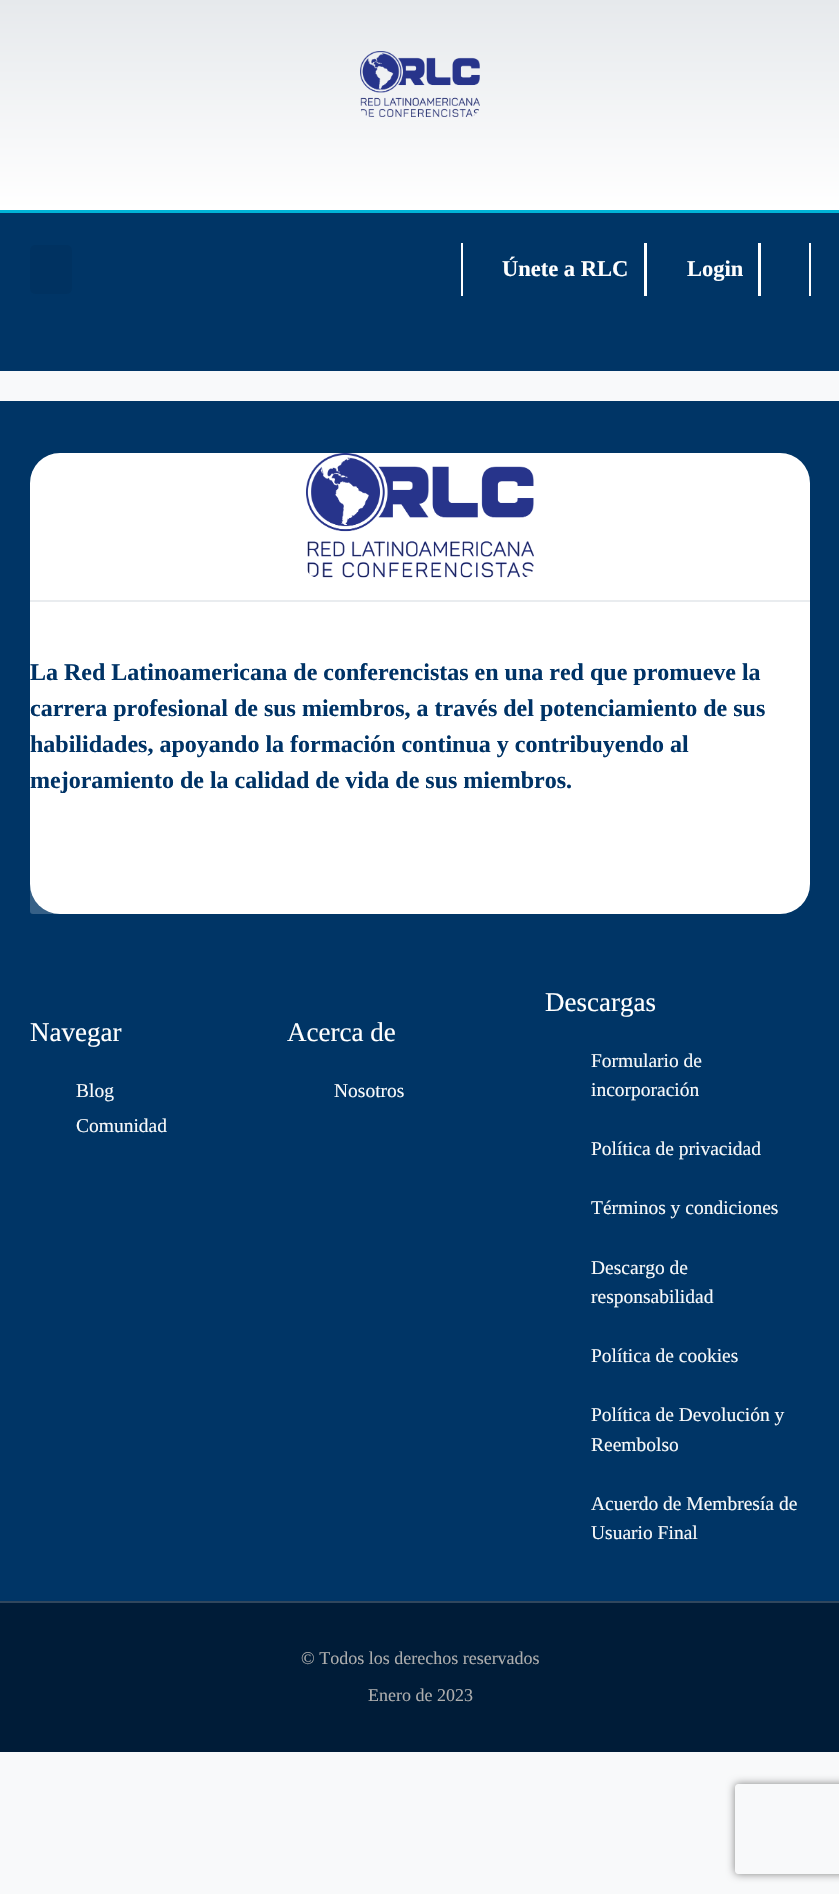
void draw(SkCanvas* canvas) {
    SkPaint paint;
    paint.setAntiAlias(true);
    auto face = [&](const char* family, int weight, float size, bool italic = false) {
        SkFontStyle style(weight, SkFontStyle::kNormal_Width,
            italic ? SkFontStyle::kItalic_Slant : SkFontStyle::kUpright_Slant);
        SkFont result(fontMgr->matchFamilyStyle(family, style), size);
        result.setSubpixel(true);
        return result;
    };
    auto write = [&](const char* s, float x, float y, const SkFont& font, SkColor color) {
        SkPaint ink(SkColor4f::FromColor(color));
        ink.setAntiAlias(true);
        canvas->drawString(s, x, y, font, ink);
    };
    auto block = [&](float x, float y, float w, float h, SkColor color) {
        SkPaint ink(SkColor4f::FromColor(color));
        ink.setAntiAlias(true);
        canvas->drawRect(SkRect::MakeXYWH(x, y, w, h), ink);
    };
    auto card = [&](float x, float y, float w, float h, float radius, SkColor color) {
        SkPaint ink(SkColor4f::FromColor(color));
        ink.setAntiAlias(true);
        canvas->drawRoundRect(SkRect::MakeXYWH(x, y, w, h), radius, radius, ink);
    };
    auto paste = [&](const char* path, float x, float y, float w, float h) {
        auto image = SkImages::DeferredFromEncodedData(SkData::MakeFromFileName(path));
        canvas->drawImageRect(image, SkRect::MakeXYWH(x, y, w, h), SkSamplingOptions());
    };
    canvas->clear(SkColorSetRGB(248, 249, 250));
    {
        const SkColor colors[] = {SkColorSetRGB(230, 233, 236), SK_ColorWHITE};
        const float stops[] = {0, 1};
        const SkPoint ends[] = {{420, 0}, {420, 210}};
        paint.setShader(SkGradientShader::MakeLinear(ends, colors, stops, 2, SkTileMode::kClamp));
        paint.setAlpha(255);
    }
    canvas->drawRect(SkRect::MakeXYWH(0, 0, 839, 210), paint);
    paste("pic1.png", 360, 51, 120, 66);
    block(0, 213, 839, 158, SkColorSetRGB(0, 53, 102));
    block(0, 210, 839, 3, SkColorSetRGB(0, 180, 216));
    card(30, 245, 42, 49, 5, SkColorSetRGB(0, 50, 97));
    block(644, 243, 3, 53, SK_ColorWHITE);
    block(461, 243, 2, 53, SK_ColorWHITE);
    auto kFont1 = face("Liberation Serif", 700, 22.5f);
    write("Únete a RLC", 502, 276, kFont1, SK_ColorWHITE);
    block(758, 243, 3, 53, SK_ColorWHITE);
    write("Login", 687, 276, kFont1, SK_ColorWHITE);
    block(809, 243, 2, 53, SK_ColorWHITE);
    block(0, 401, 839, 1200, SkColorSetRGB(0, 53, 102));
    card(30, 453, 780, 461, 30, SK_ColorWHITE);
    paste("pic2.png", 306, 453, 228, 125);
    block(30, 600, 780, 2, SkColorSetRGB(233, 236, 239));
    auto kFont2 = face("Liberation Serif", 700, 24);
    write("La Red Latinoamericana de conferencistas en una red que promueve la", 30, 680, kFont2, SkColorSetRGB(0, 51, 102));
    write("carrera profesional de sus miembros, a través del potenciamiento de sus", 30, 716, kFont2, SkColorSetRGB(0, 51, 102));
    write("habilidades, apoyando la formación continua y contribuyendo al", 30, 752, kFont2, SkColorSetRGB(0, 51, 102));
    write("mejoramiento de la calidad de vida de sus miembros.", 30, 788, kFont2, SkColorSetRGB(0, 51, 102));
    card(30, 881, 33, 33, 3, SkColorSetARGB(54, 255, 255, 255));
    auto kFont3 = face("Liberation Serif", 400, 27);
    write("Navegar", 30, 1041, kFont3, SK_ColorWHITE);
    auto kFont4 = face("Liberation Serif", 400, 19.5f);
    write("Blog", 76, 1097, kFont4, SkColorSetRGB(248, 249, 250));
    write("Comunidad", 76, 1132, kFont4, SkColorSetRGB(248, 249, 250));
    write("Acerca de", 287, 1041, kFont3, SK_ColorWHITE);
    write("Nosotros", 334, 1097, kFont4, SkColorSetRGB(248, 249, 250));
    write("Descargas", 545, 1011, kFont3, SK_ColorWHITE);
    write("Formulario de", 591, 1067, kFont4, SkColorSetRGB(248, 249, 250));
    write("incorporación", 591, 1096, kFont4, SkColorSetRGB(248, 249, 250));
    write("Política de privacidad", 591, 1155, kFont4, SkColorSetRGB(248, 249, 250));
    write("Términos y condiciones", 591, 1214, kFont4, SkColorSetRGB(248, 249, 250));
    write("Descargo de", 591, 1274, kFont4, SkColorSetRGB(248, 249, 250));
    write("responsabilidad", 591, 1303, kFont4, SkColorSetRGB(248, 249, 250));
    write("Política de cookies", 591, 1362, kFont4, SkColorSetRGB(248, 249, 250));
    write("Política de Devolución y", 591, 1421, kFont4, SkColorSetRGB(248, 249, 250));
    write("Reembolso", 591, 1451, kFont4, SkColorSetRGB(248, 249, 250));
    write("Acuerdo de Membresía de", 591, 1510, kFont4, SkColorSetRGB(248, 249, 250));
    write("Usuario Final", 591, 1539, kFont4, SkColorSetRGB(248, 249, 250));
    block(0, 1603, 839, 149, SkColorSetRGB(0, 28, 56));
    block(0, 1601, 839, 2, SkColorSetRGB(48, 71, 94));
    auto kFont5 = face("Liberation Serif", 400, 18);
    write("© Todos los derechos reservados", 301, 1664, kFont5, SkColorSetRGB(173, 173, 173));
    write("Enero de 2023", 368, 1701, kFont5, SkColorSetRGB(173, 173, 173));
    canvas->save();
    canvas->clipPath(SkPathBuilder(SkPathFillType::kEvenOdd).moveTo(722, 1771).lineTo(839, 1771).lineTo(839, 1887).lineTo(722, 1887).close().moveTo(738, 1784).lineTo(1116, 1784).cubicTo(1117.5f, 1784, 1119, 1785.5f, 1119, 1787).lineTo(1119, 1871).cubicTo(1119, 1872.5f, 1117.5f, 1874, 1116, 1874).lineTo(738, 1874).cubicTo(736.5f, 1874, 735, 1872.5f, 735, 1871).lineTo(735, 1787).cubicTo(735, 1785.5f, 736.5f, 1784, 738, 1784).close().detach(), true);
    paint.setShader(nullptr);
    paint.setColor(SkColorSetRGB(128, 128, 128));
    paint.setMaskFilter(SkMaskFilter::MakeBlur(kNormal_SkBlurStyle, 4));
    canvas->drawRoundRect(SkRect::MakeXYWH(735, 1784, 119, 90), 3, 3, paint);
    paint.setMaskFilter(nullptr);
    canvas->restore();
}
